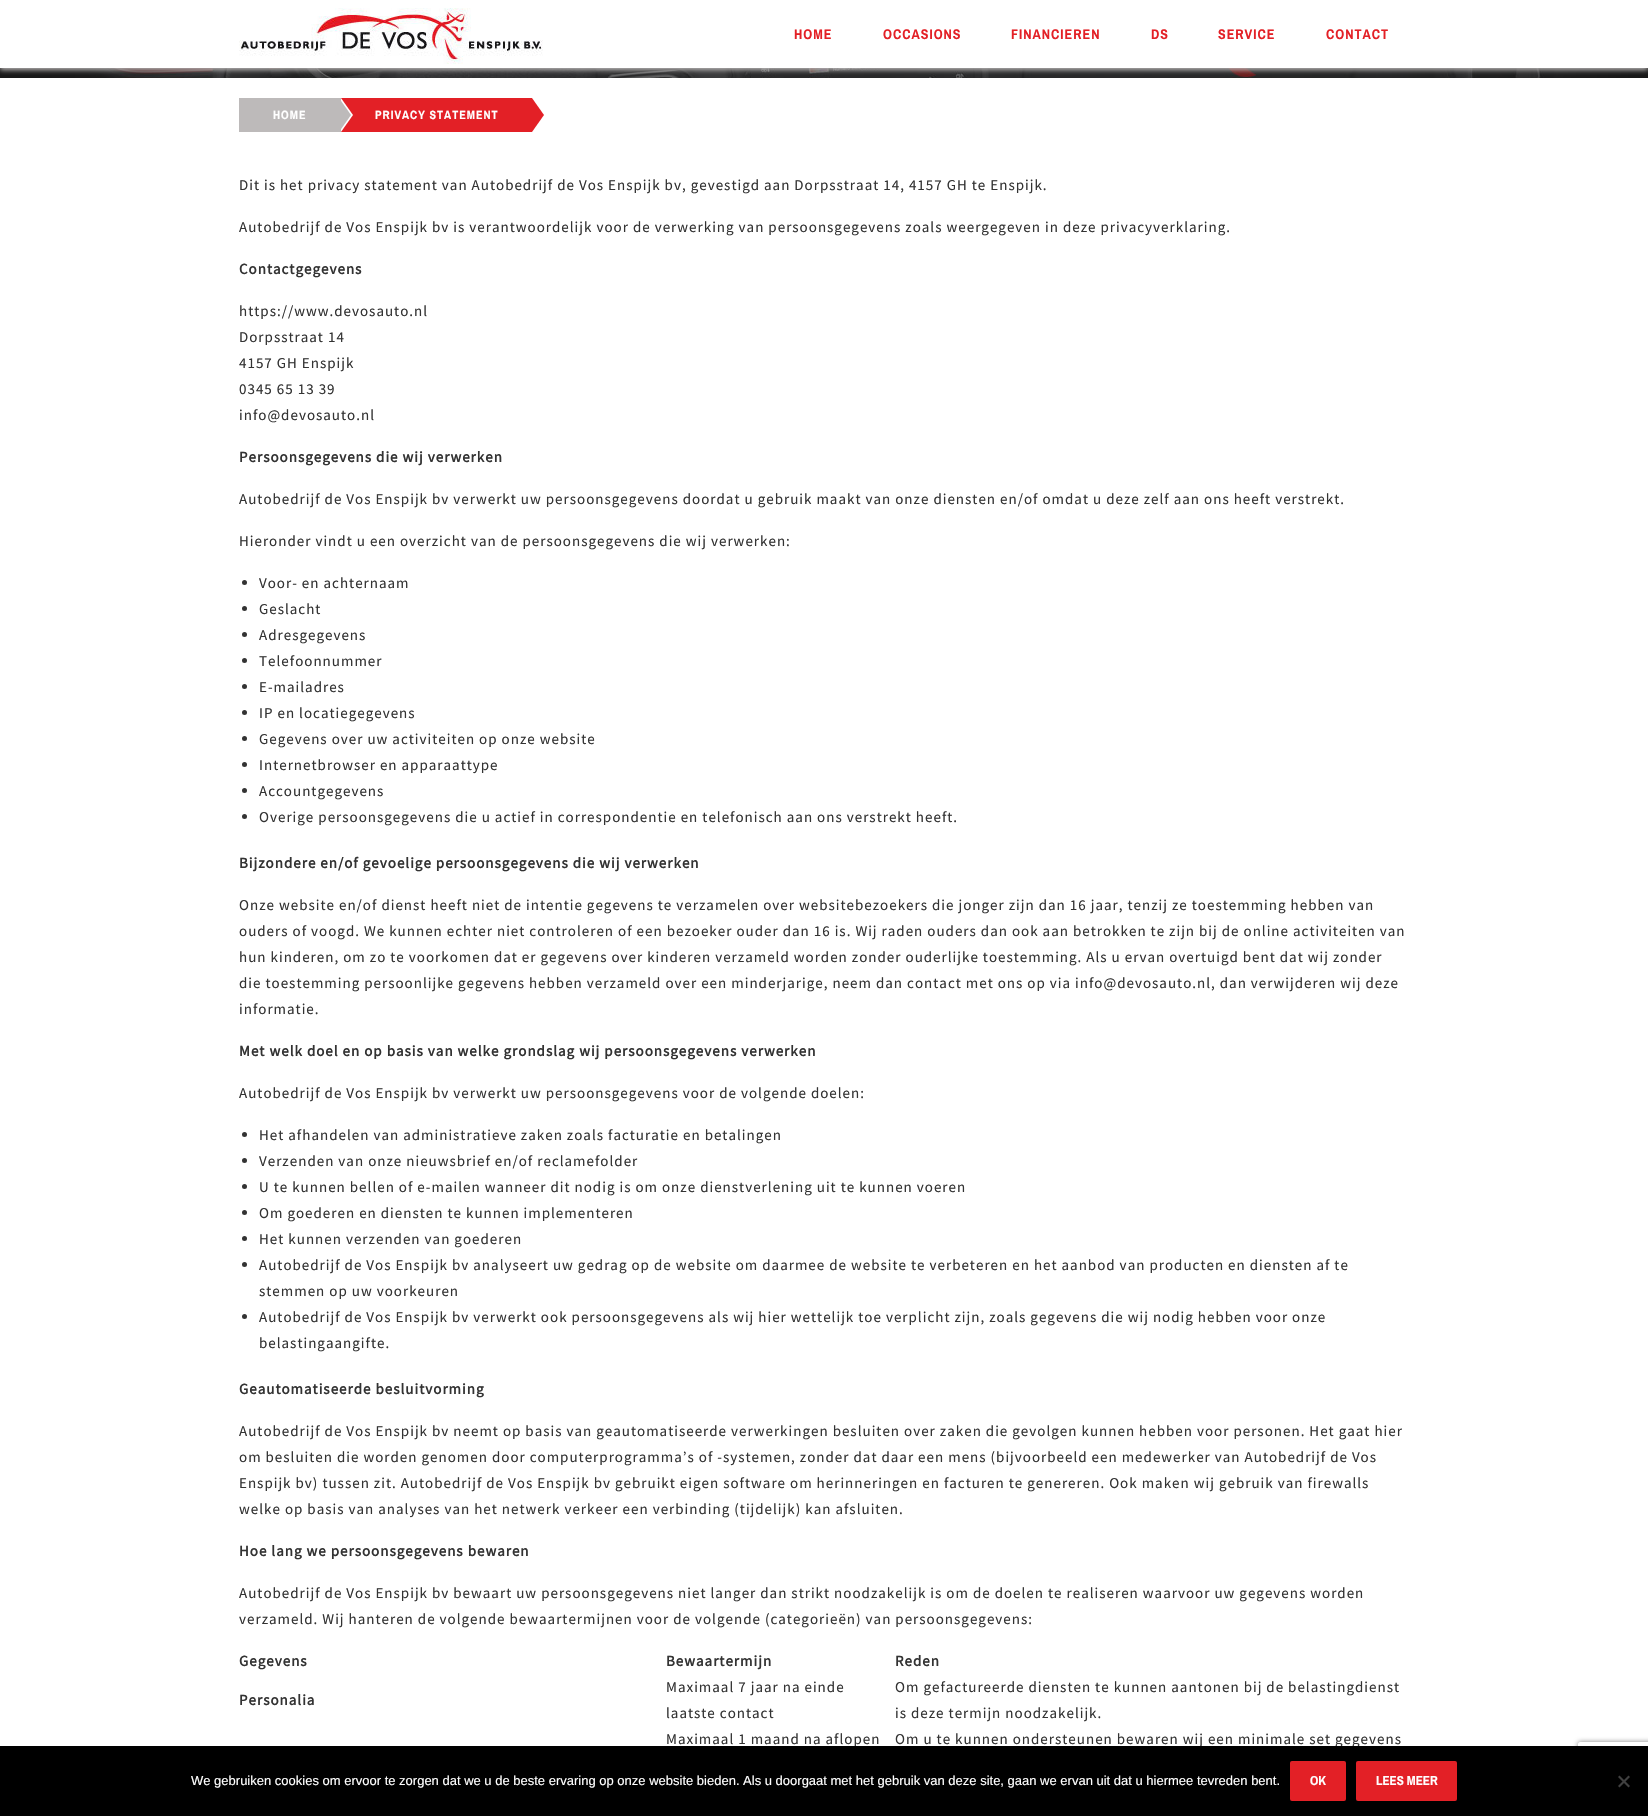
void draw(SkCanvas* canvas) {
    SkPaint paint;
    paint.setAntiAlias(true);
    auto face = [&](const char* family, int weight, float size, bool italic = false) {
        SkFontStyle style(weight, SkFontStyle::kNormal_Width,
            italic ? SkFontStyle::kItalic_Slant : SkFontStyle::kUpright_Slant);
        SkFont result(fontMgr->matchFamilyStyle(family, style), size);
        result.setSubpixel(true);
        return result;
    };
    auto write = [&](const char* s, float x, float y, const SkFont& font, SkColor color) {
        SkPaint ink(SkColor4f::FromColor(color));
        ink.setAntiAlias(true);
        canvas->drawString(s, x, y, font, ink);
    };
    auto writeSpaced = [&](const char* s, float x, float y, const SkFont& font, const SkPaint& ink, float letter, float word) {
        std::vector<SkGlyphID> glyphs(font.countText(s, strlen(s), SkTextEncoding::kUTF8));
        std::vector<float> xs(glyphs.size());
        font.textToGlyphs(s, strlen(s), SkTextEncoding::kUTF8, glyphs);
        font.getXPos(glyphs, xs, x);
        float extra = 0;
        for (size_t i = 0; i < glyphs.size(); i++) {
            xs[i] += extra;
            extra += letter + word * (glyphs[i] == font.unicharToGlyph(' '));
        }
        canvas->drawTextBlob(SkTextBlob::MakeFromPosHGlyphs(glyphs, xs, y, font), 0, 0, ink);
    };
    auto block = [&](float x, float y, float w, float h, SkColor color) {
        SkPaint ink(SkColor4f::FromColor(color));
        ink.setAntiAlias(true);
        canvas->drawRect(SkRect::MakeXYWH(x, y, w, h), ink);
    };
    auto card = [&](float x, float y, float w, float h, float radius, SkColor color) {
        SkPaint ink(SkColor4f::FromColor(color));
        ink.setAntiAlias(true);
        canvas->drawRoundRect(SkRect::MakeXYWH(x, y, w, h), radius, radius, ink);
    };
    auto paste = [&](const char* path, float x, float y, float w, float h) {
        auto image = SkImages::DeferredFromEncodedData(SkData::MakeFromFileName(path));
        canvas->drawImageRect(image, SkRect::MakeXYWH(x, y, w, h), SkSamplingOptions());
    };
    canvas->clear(SK_ColorWHITE);
    paste("pic2.png", 0, 68, 1648, 10);
    paste("pic3.png", 0, 68, 1648, 10);
    paint.setColor(SkColorSetRGB(189, 186, 186));
    paint.setMaskFilter(SkMaskFilter::MakeBlur(kNormal_SkBlurStyle, 2.5f));
    canvas->drawRect(SkRect::MakeXYWH(0, 2, 1648, 68), paint);
    paint.setMaskFilter(nullptr);
    block(0, 0, 1648, 68, SK_ColorWHITE);
    paste("pic1.png", 239, 8, 304, 56);
    auto kFont1 = face("Archivo Narrow", 700, 14);
    paint.setColor(SkColorSetRGB(227, 32, 38));
    writeSpaced("HOME", 794, 39, kFont1, paint, 1, 0);
    writeSpaced("OCCASIONS", 883, 39, kFont1, paint, 1, 0);
    writeSpaced("FINANCIEREN", 1011, 39, kFont1, paint, 1, 0);
    writeSpaced("DS", 1151, 39, kFont1, paint, 1, 0);
    writeSpaced("SERVICE", 1218, 39, kFont1, paint, 1, 0);
    writeSpaced("CONTACT", 1326, 39, kFont1, paint, 1, 0);
    block(239, 98, 102, 34, SkColorSetRGB(189, 186, 186));
    auto kFont2 = face("Archivo Narrow", 700, 12);
    paint.setColor(SK_ColorWHITE);
    writeSpaced("HOME", 273, 119, kFont2, paint, 1, 0);
    block(341, 98, 191, 34, SkColorSetRGB(227, 32, 38));
    canvas->drawPath(SkPathBuilder().moveTo(341, 132).lineTo(341, 98).lineTo(353, 115).close().detach(), paint);
    paint.setColor(SkColorSetRGB(189, 186, 186));
    canvas->drawPath(SkPathBuilder().moveTo(339, 132).lineTo(339, 98).lineTo(351, 115).close().detach(), paint);
    paint.setColor(SK_ColorWHITE);
    writeSpaced("PRIVACY STATEMENT", 375, 119, kFont2, paint, 1, 0);
    paint.setColor(SkColorSetRGB(227, 32, 38));
    canvas->drawPath(SkPathBuilder().moveTo(532, 132).lineTo(532, 98).lineTo(544, 115).close().detach(), paint);
    auto kFont3 = face("Source Sans Pro", 400, 15);
    paint.setColor(SkColorSetRGB(51, 51, 51));
    writeSpaced("Dit is het privacy statement van Autobedrijf de Vos Enspijk bv, gevestigd aan Dorpsstraat 14, 4157 GH te Enspijk.", 239, 190, kFont3, paint, 1, 0);
    writeSpaced("Autobedrijf de Vos Enspijk bv is verantwoordelijk voor de verwerking van persoonsgegevens zoals weergegeven in deze privacyverklaring.", 239, 232, kFont3, paint, 1, 0);
    auto kFont4 = face("Source Sans Pro", 700, 15);
    writeSpaced("Contactgegevens", 239, 274, kFont4, paint, 1, 0);
    writeSpaced("https://www.devosauto.nl", 239, 316, kFont3, paint, 1, 0);
    writeSpaced("Dorpsstraat 14", 239, 342, kFont3, paint, 1, 0);
    writeSpaced("4157 GH Enspijk", 239, 368, kFont3, paint, 1, 0);
    writeSpaced("0345 65 13 39", 239, 394, kFont3, paint, 1, 0);
    writeSpaced("info@devosauto.nl", 239, 420, kFont3, paint, 1, 0);
    writeSpaced("Persoonsgegevens die wij verwerken", 239, 462, kFont4, paint, 1, 0);
    writeSpaced("Autobedrijf de Vos Enspijk bv verwerkt uw persoonsgegevens doordat u gebruik maakt van onze diensten en/of omdat u deze zelf aan ons heeft verstrekt.", 239, 504, kFont3, paint, 1, 0);
    writeSpaced("Hieronder vindt u een overzicht van de persoonsgegevens die wij verwerken:", 239, 546, kFont3, paint, 1, 0);
    canvas->drawCircle(244.5f, 582.5f, 2.5f, paint);
    writeSpaced("Voor- en achternaam", 259, 588, kFont3, paint, 1, 0);
    canvas->drawCircle(244.5f, 608.5f, 2.5f, paint);
    writeSpaced("Geslacht", 259, 614, kFont3, paint, 1, 0);
    canvas->drawCircle(244.5f, 634.5f, 2.5f, paint);
    writeSpaced("Adresgegevens", 259, 640, kFont3, paint, 1, 0);
    canvas->drawCircle(244.5f, 660.5f, 2.5f, paint);
    writeSpaced("Telefoonnummer", 259, 666, kFont3, paint, 1, 0);
    canvas->drawCircle(244.5f, 686.5f, 2.5f, paint);
    writeSpaced("E-mailadres", 259, 692, kFont3, paint, 1, 0);
    canvas->drawCircle(244.5f, 712.5f, 2.5f, paint);
    writeSpaced("IP en locatiegegevens", 259, 718, kFont3, paint, 1, 0);
    canvas->drawCircle(244.5f, 738.5f, 2.5f, paint);
    writeSpaced("Gegevens over uw activiteiten op onze website", 259, 744, kFont3, paint, 1, 0);
    canvas->drawCircle(244.5f, 764.5f, 2.5f, paint);
    writeSpaced("Internetbrowser en apparaattype", 259, 770, kFont3, paint, 1, 0);
    canvas->drawCircle(244.5f, 790.5f, 2.5f, paint);
    writeSpaced("Accountgegevens", 259, 796, kFont3, paint, 1, 0);
    canvas->drawCircle(244.5f, 816.5f, 2.5f, paint);
    writeSpaced("Overige persoonsgegevens die u actief in correspondentie en telefonisch aan ons verstrekt heeft.", 259, 822, kFont3, paint, 1, 0);
    writeSpaced("Bijzondere en/of gevoelige persoonsgegevens die wij verwerken", 239, 868, kFont4, paint, 1, 0);
    writeSpaced("Onze website en/of dienst heeft niet de intentie gegevens te verzamelen over websitebezoekers die jonger zijn dan 16 jaar, tenzij ze toestemming hebben van", 239, 910, kFont3, paint, 1, 0);
    writeSpaced("ouders of voogd. We kunnen echter niet controleren of een bezoeker ouder dan 16 is. Wij raden ouders dan ook aan betrokken te zijn bij de online activiteiten van", 239, 936, kFont3, paint, 1, 0);
    writeSpaced("hun kinderen, om zo te voorkomen dat er gegevens over kinderen verzameld worden zonder ouderlijke toestemming. Als u ervan overtuigd bent dat wij zonder", 239, 962, kFont3, paint, 1, 0);
    writeSpaced("die toestemming persoonlijke gegevens hebben verzameld over een minderjarige, neem dan contact met ons op via info@devosauto.nl, dan verwijderen wij deze", 239, 988, kFont3, paint, 1, 0);
    writeSpaced("informatie.", 239, 1014, kFont3, paint, 1, 0);
    writeSpaced("Met welk doel en op basis van welke grondslag wij persoonsgegevens verwerken", 239, 1056, kFont4, paint, 1, 0);
    writeSpaced("Autobedrijf de Vos Enspijk bv verwerkt uw persoonsgegevens voor de volgende doelen:", 239, 1098, kFont3, paint, 1, 0);
    canvas->drawCircle(244.5f, 1134.5f, 2.5f, paint);
    writeSpaced("Het afhandelen van administratieve zaken zoals facturatie en betalingen", 259, 1140, kFont3, paint, 1, 0);
    canvas->drawCircle(244.5f, 1160.5f, 2.5f, paint);
    writeSpaced("Verzenden van onze nieuwsbrief en/of reclamefolder", 259, 1166, kFont3, paint, 1, 0);
    canvas->drawCircle(244.5f, 1186.5f, 2.5f, paint);
    writeSpaced("U te kunnen bellen of e-mailen wanneer dit nodig is om onze dienstverlening uit te kunnen voeren", 259, 1192, kFont3, paint, 1, 0);
    canvas->drawCircle(244.5f, 1212.5f, 2.5f, paint);
    writeSpaced("Om goederen en diensten te kunnen implementeren", 259, 1218, kFont3, paint, 1, 0);
    canvas->drawCircle(244.5f, 1238.5f, 2.5f, paint);
    writeSpaced("Het kunnen verzenden van goederen", 259, 1244, kFont3, paint, 1, 0);
    canvas->drawCircle(244.5f, 1264.5f, 2.5f, paint);
    writeSpaced("Autobedrijf de Vos Enspijk bv analyseert uw gedrag op de website om daarmee de website te verbeteren en het aanbod van producten en diensten af te", 259, 1270, kFont3, paint, 1, 0);
    writeSpaced("stemmen op uw voorkeuren", 259, 1296, kFont3, paint, 1, 0);
    canvas->drawCircle(244.5f, 1316.5f, 2.5f, paint);
    writeSpaced("Autobedrijf de Vos Enspijk bv verwerkt ook persoonsgegevens als wij hier wettelijk toe verplicht zijn, zoals gegevens die wij nodig hebben voor onze", 259, 1322, kFont3, paint, 1, 0);
    writeSpaced("belastingaangifte.", 259, 1348, kFont3, paint, 1, 0);
    writeSpaced("Geautomatiseerde besluitvorming", 239, 1394, kFont4, paint, 1, 0);
    writeSpaced("Autobedrijf de Vos Enspijk bv neemt op basis van geautomatiseerde verwerkingen besluiten over zaken die gevolgen kunnen hebben voor personen. Het gaat hier", 239, 1436, kFont3, paint, 1, 0);
    writeSpaced("om besluiten die worden genomen door computerprogramma’s of -systemen, zonder dat daar een mens (bijvoorbeeld een medewerker van Autobedrijf de Vos", 239, 1462, kFont3, paint, 1, 0);
    writeSpaced("Enspijk bv) tussen zit. Autobedrijf de Vos Enspijk bv gebruikt eigen software om herinneringen en facturen te genereren. Ook maken wij gebruik van firewalls", 239, 1488, kFont3, paint, 1, 0);
    writeSpaced("welke op basis van analyses van het netwerk verkeer een verbinding (tijdelijk) kan afsluiten.", 239, 1514, kFont3, paint, 1, 0);
    writeSpaced("Hoe lang we persoonsgegevens bewaren", 239, 1556, kFont4, paint, 1, 0);
    writeSpaced("Autobedrijf de Vos Enspijk bv bewaart uw persoonsgegevens niet langer dan strikt noodzakelijk is om de doelen te realiseren waarvoor uw gegevens worden", 239, 1598, kFont3, paint, 1, 0);
    writeSpaced("verzameld. Wij hanteren de volgende bewaartermijnen voor de volgende (categorieën) van persoonsgegevens:", 239, 1624, kFont3, paint, 1, 0);
    writeSpaced("Gegevens", 239, 1666, kFont4, paint, 1, 0);
    writeSpaced("Bewaartermijn", 666, 1666, kFont4, paint, 1, 0);
    writeSpaced("Reden", 895, 1666, kFont4, paint, 1, 0);
    writeSpaced("Personalia", 239, 1705, kFont4, paint, 1, 0);
    writeSpaced("Maximaal 7 jaar na einde", 666, 1692, kFont3, paint, 1, 0);
    writeSpaced("laatste contact", 666, 1718, kFont3, paint, 1, 0);
    writeSpaced("Om gefactureerde diensten te kunnen aantonen bij de belastingdienst", 895, 1692, kFont3, paint, 1, 0);
    writeSpaced("is deze termijn noodzakelijk.", 895, 1718, kFont3, paint, 1, 0);
    writeSpaced("Maximaal 1 maand na aflopen", 666, 1744, kFont3, paint, 1, 0);
    writeSpaced("Om u te kunnen ondersteunen bewaren wij een minimale set gegevens", 895, 1744, kFont3, paint, 1, 0);
    canvas->save();
    canvas->clipPath(SkPathBuilder(SkPathFillType::kEvenOdd).moveTo(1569, 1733).lineTo(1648, 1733).lineTo(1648, 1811).lineTo(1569, 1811).close().moveTo(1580, 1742).lineTo(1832, 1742).cubicTo(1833, 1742, 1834, 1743, 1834, 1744).lineTo(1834, 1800).cubicTo(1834, 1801, 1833, 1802, 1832, 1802).lineTo(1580, 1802).cubicTo(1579, 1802, 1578, 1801, 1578, 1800).lineTo(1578, 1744).cubicTo(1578, 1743, 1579, 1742, 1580, 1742).close().detach(), true);
    paint.setColor(SkColorSetRGB(128, 128, 128));
    paint.setMaskFilter(SkMaskFilter::MakeBlur(kNormal_SkBlurStyle, 2.5f));
    canvas->drawRoundRect(SkRect::MakeXYWH(1578, 1742, 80, 60), 2, 2, paint);
    paint.setMaskFilter(nullptr);
    canvas->restore();
    block(0, 1746, 1648, 70, SK_ColorBLACK);
    auto kFont5 = face("Liberation Sans", 400, 13);
    write("We gebruiken cookies om ervoor te zorgen dat we u de beste ervaring op onze website bieden. Als u doorgaat met het gebruik van deze site, gaan we ervan uit dat u hiermee tevreden bent.", 191, 1785, kFont5, SK_ColorWHITE);
    card(1290, 1761, 56, 40, 2, SkColorSetRGB(227, 32, 38));
    auto kFont6 = face("Archivo Narrow", 700, 13);
    write("OK", 1310, 1785, kFont6, SK_ColorWHITE);
    card(1356, 1761, 101, 40, 2, SkColorSetRGB(227, 32, 38));
    write("LEES MEER", 1376, 1785, kFont6, SK_ColorWHITE);
    paint.setColor(SkColorSetRGB(64, 64, 64));
    canvas->drawPath(SkPathBuilder().moveTo(1628.5f, 1775.5f).lineTo(1630, 1777).lineTo(1619.5f, 1787.5f).lineTo(1618, 1786).close().detach(), paint);
    canvas->drawPath(SkPathBuilder().moveTo(1618, 1777).lineTo(1619.5f, 1775.5f).lineTo(1630, 1786).lineTo(1628.5f, 1787.5f).close().detach(), paint);
}
